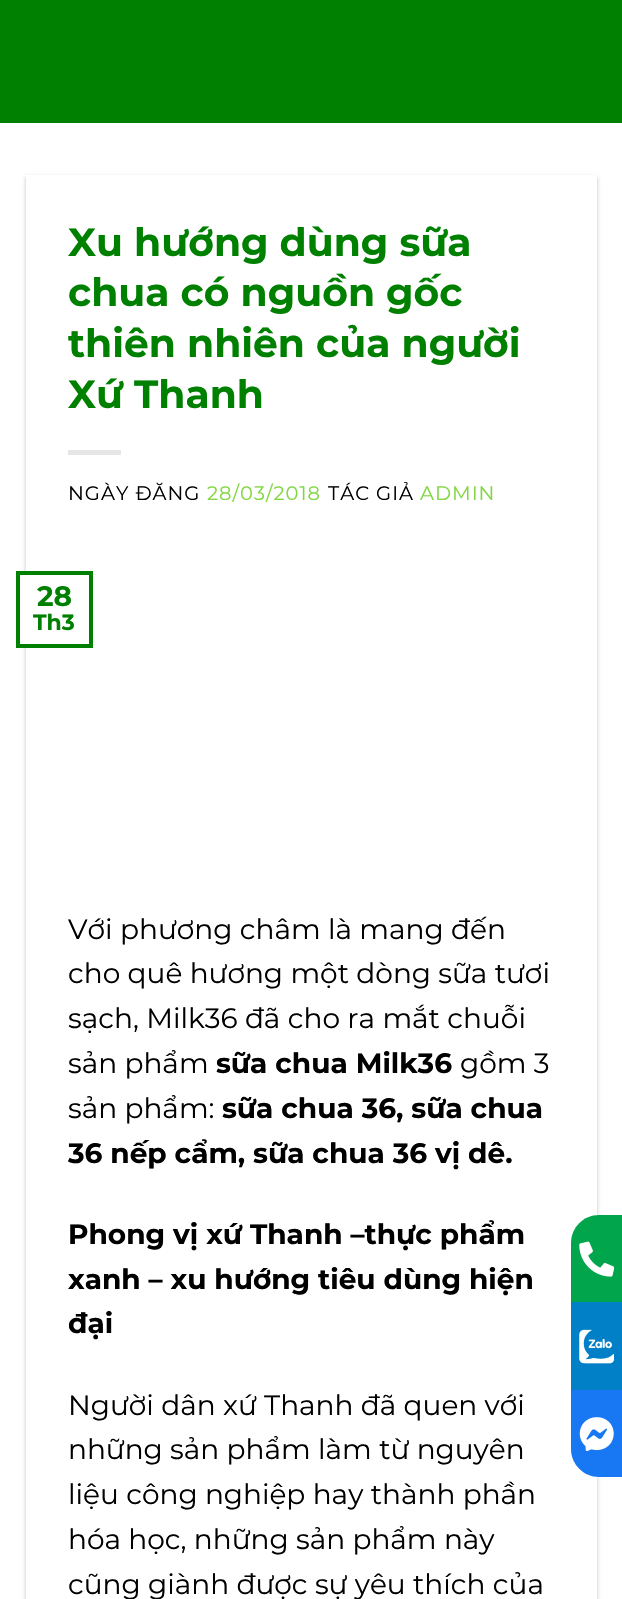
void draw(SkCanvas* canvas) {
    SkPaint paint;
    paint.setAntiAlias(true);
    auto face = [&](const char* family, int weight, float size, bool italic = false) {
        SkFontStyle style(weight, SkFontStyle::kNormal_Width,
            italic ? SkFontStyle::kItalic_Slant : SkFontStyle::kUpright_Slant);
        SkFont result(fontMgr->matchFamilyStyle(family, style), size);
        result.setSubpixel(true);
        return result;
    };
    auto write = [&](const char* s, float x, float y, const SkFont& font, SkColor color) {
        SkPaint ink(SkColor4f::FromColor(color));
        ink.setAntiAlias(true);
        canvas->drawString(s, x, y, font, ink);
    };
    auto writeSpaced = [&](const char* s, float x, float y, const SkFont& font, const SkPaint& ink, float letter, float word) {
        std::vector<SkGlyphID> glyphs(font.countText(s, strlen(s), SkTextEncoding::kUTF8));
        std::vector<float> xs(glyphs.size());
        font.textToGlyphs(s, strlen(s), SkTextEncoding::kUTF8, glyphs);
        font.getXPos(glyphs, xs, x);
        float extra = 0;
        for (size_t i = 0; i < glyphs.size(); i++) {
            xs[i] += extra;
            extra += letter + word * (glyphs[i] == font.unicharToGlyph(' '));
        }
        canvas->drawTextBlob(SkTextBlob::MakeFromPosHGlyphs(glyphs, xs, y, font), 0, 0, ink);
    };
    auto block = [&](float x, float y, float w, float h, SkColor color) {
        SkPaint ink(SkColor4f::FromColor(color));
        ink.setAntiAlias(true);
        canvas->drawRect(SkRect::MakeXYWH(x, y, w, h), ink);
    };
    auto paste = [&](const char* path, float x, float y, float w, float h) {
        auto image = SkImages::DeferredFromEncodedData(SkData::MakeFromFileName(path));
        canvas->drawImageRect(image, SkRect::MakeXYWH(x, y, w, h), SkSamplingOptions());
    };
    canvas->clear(SK_ColorWHITE);
    block(0, 0, 622, 123, SkColorSetRGB(0, 128, 0));
    paint.setColor(SkColorSetARGB(61, 0, 0, 0));
    paint.setMaskFilter(SkMaskFilter::MakeBlur(kNormal_SkBlurStyle, 2));
    canvas->drawRect(SkRect::MakeXYWH(26, 177, 571, 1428), paint);
    paint.setMaskFilter(nullptr);
    block(26, 175, 571, 1424, SK_ColorWHITE);
    auto kFont1 = face("Montserrat", 700, 39.25f);
    write("Xu hướng dùng sữa", 68, 256, kFont1, SkColorSetRGB(0, 128, 0));
    write("chua có nguồn gốc", 68, 306, kFont1, SkColorSetRGB(0, 128, 0));
    write("thiên nhiên của người", 68, 357, kFont1, SkColorSetRGB(0, 128, 0));
    write("Xứ Thanh", 68, 408, kFont1, SkColorSetRGB(0, 128, 0));
    block(68, 450, 53, 5, SkColorSetRGB(230, 230, 230));
    auto kFont2 = face("Montserrat", 400, 19.5f);
    paint.setColor(SK_ColorBLACK);
    writeSpaced("NGÀY ĐĂNG", 68, 500, kFont2, paint, 1, 0);
    paint.setColor(SkColorSetRGB(129, 215, 66));
    writeSpaced("28/03/2018", 207, 500, kFont2, paint, 1, 0);
    paint.setColor(SK_ColorBLACK);
    writeSpaced("TÁC GIẢ", 328, 500, kFont2, paint, 1, 0);
    paint.setColor(SkColorSetRGB(129, 215, 66));
    writeSpaced("ADMIN", 420, 500, kFont2, paint, 1, 0);
    block(23, 575, 3, 69, SK_ColorWHITE);
    paint.setStyle(SkPaint::kStroke_Style);
    paint.setStrokeWidth(4);
    paint.setColor(SkColorSetRGB(0, 128, 0));
    canvas->drawRect(SkRect::MakeXYWH(18, 573, 73, 73), paint);
    auto kFont3 = face("Montserrat", 700, 28);
    write("28", 37, 606, kFont3, SkColorSetRGB(0, 128, 0));
    auto kFont4 = face("Montserrat", 700, 22);
    write("Th3", 33, 630, kFont4, SkColorSetRGB(0, 128, 0));
    auto kFont5 = face("Montserrat", 400, 28);
    write("Với phương châm là mang đến", 68, 939, kFont5, SK_ColorBLACK);
    write("cho quê hương một dòng sữa tươi", 68, 983, kFont5, SK_ColorBLACK);
    write("sạch, Milk36 đã cho ra mắt chuỗi", 68, 1028, kFont5, SK_ColorBLACK);
    write("sản phẩm", 68, 1073, kFont5, SK_ColorBLACK);
    write("sữa chua Milk36", 216, 1073, kFont3, SK_ColorBLACK);
    write("gồm 3", 460, 1073, kFont5, SK_ColorBLACK);
    write("sản phẩm:", 68, 1118, kFont5, SK_ColorBLACK);
    write("sữa chua 36, sữa chua", 222, 1118, kFont3, SK_ColorBLACK);
    write("36 nếp cẩm, sữa chua 36 vị dê.", 68, 1163, kFont3, SK_ColorBLACK);
    write("Phong vị xứ Thanh –thực phẩm", 68, 1244, kFont3, SK_ColorBLACK);
    write("xanh – xu hướng tiêu dùng hiện", 68, 1289, kFont3, SK_ColorBLACK);
    write("đại", 68, 1333, kFont3, SK_ColorBLACK);
    write("Người dân xứ Thanh đã quen với", 68, 1415, kFont5, SK_ColorBLACK);
    write("những sản phẩm làm từ nguyên", 68, 1459, kFont5, SK_ColorBLACK);
    write("liệu công nghiệp hay thành phần", 68, 1504, kFont5, SK_ColorBLACK);
    write("hóa học, những sản phẩm này", 68, 1549, kFont5, SK_ColorBLACK);
    write("cũng giành được sự yêu thích của", 68, 1594, kFont5, SK_ColorBLACK);
    paint.setStyle(SkPaint::kFill_Style);
    paint.setColor(SkColorSetRGB(1, 165, 76));
    canvas->drawPath(SkPathBuilder().moveTo(599, 1215).lineTo(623, 1215).lineTo(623, 1302).lineTo(571, 1302).lineTo(571, 1243).cubicTo(571, 1227.5f, 583.5f, 1215, 599, 1215).close().detach(), paint);
    paste("pic1.png", 579, 1241, 35, 36);
    block(571, 1302, 51, 88, SkColorSetRGB(1, 128, 199));
    paste("pic2.png", 579, 1329, 35, 35);
    paint.setColor(SkColorSetRGB(24, 119, 242));
    canvas->drawPath(SkPathBuilder().moveTo(571, 1390).lineTo(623, 1390).lineTo(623, 1477).lineTo(599, 1477).cubicTo(583.5f, 1477, 571, 1464.5f, 571, 1449).close().detach(), paint);
    paste("pic3.png", 579, 1417, 35, 34);
}
